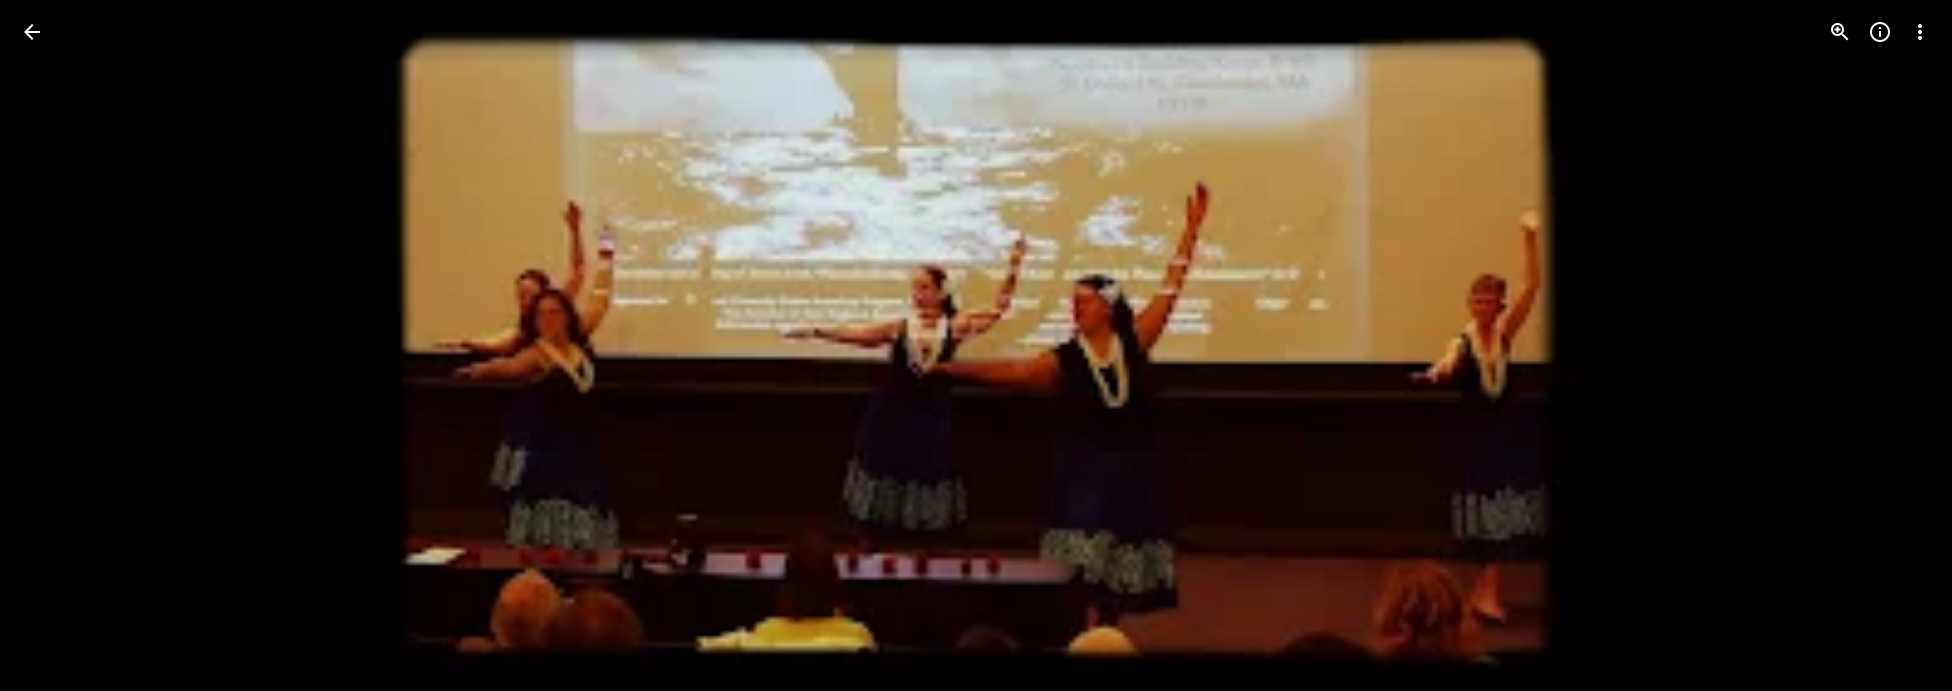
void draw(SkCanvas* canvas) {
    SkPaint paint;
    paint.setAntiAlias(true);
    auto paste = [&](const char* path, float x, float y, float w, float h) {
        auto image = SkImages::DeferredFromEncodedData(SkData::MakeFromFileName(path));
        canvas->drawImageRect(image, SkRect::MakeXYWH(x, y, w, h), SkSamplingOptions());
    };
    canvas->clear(SK_ColorBLACK);
    paste("pic5.png", 395, 32, 1183, 637);
    {
        const SkColor colors[] = {SkColorSetARGB(153, 0, 0, 0), SkColorSetARGB(0, 0, 0, 0)};
        const float stops[] = {0, 1};
        const SkPoint ends[] = {{976, 0}, {976, 64}};
        paint.setShader(SkGradientShader::MakeLinear(ends, colors, stops, 2, SkTileMode::kClamp));
        paint.setAlpha(255);
    }
    canvas->drawRect(SkRect::MakeXYWH(402, 33, 1142, 29), paint);
    paste("pic1.png", 24, 24, 16, 16);
    paste("pic2.png", 1831, 23, 18, 18);
    paste("pic3.png", 1870, 22, 20, 20);
    paste("pic4.png", 1918, 24, 4, 16);
}
